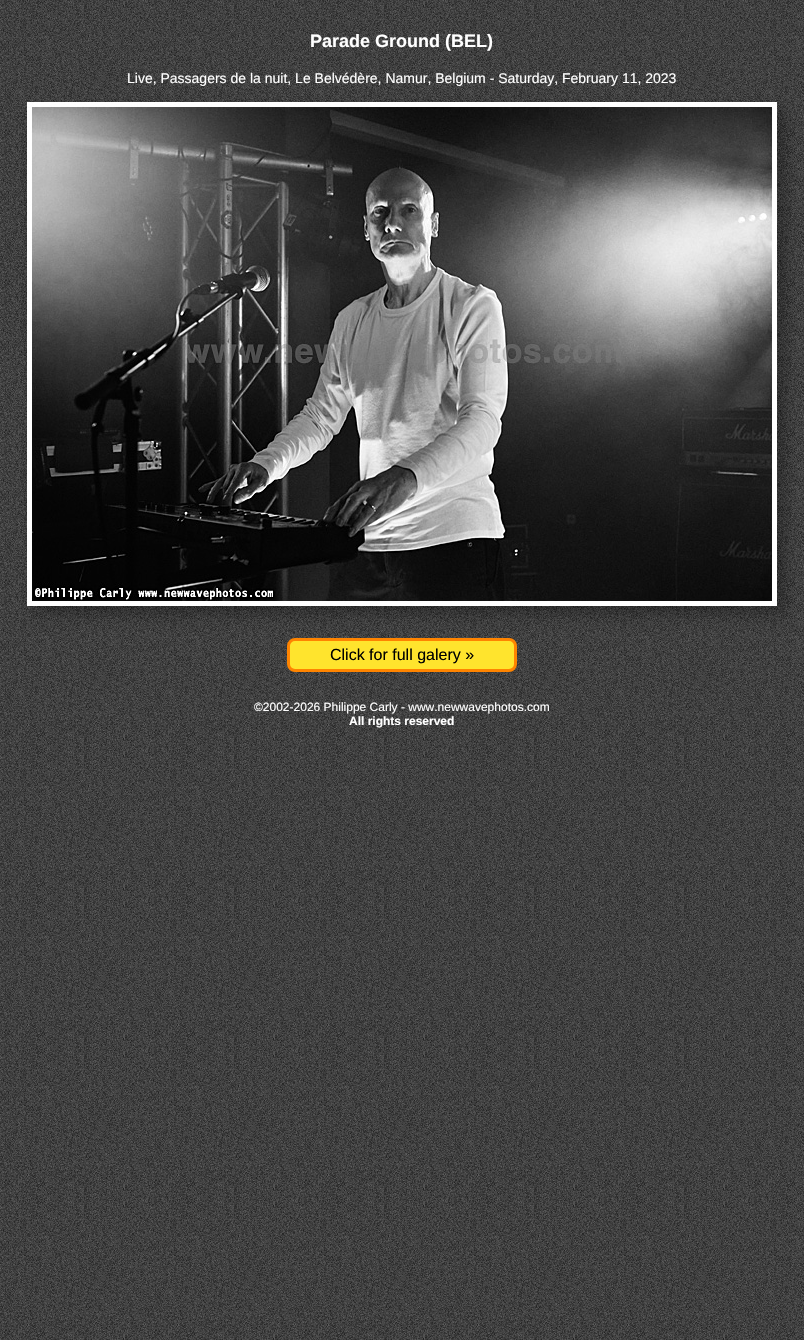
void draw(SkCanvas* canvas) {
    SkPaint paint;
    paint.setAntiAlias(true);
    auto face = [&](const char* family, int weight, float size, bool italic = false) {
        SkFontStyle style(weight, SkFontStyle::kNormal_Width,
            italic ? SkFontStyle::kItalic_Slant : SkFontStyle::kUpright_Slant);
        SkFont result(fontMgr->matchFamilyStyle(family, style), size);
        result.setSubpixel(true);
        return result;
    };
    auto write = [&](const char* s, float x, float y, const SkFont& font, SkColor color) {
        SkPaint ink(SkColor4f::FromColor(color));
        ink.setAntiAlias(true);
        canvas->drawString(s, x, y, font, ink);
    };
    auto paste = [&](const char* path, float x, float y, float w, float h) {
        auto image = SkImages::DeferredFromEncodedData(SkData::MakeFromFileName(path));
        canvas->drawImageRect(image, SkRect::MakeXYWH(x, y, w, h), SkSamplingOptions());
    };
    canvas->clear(SK_ColorWHITE);
    paste("pic1.png", 0, 0, 804, 1340);
    auto kFont1 = face("Liberation Sans", 700, 18);
    write("Parade Ground (BEL)", 310, 47, kFont1, SK_ColorWHITE);
    paint.setColor(SkColorSetARGB(77, 0, 0, 0));
    paint.setMaskFilter(SkMaskFilter::MakeBlur(kNormal_SkBlurStyle, 8));
    canvas->drawRect(SkRect::MakeXYWH(35, 110, 750, 504), paint);
    paint.setMaskFilter(nullptr);
    auto kFont2 = face("Liberation Sans", 400, 14);
    write("Live, Passagers de la nuit, Le Belvédère, Namur, Belgium - Saturday, February 11, 2023", 127, 83, kFont2, SK_ColorWHITE);
    paste("pic2.png", 27, 102, 750, 504);
    paint.setColor(SkColorSetRGB(255, 228, 45));
    canvas->drawRoundRect(SkRect::MakeXYWH(288.5f, 639.5f, 227, 31), 6.5f, 6.5f, paint);
    paint.setStyle(SkPaint::kStroke_Style);
    paint.setStrokeWidth(3);
    paint.setColor(SkColorSetRGB(255, 132, 0));
    canvas->drawRoundRect(SkRect::MakeXYWH(288.5f, 639.5f, 227, 31), 6.5f, 6.5f, paint);
    auto kFont3 = face("Liberation Sans", 400, 16);
    write("Click for full galery »", 330, 660, kFont3, SK_ColorBLACK);
    auto kFont4 = face("Liberation Sans", 400, 12);
    write("©2002-2026 Philippe Carly - www.newwavephotos.com", 254, 711, kFont4, SK_ColorWHITE);
    auto kFont5 = face("Liberation Sans", 700, 12);
    write("All rights reserved", 349, 725, kFont5, SK_ColorWHITE);
}
